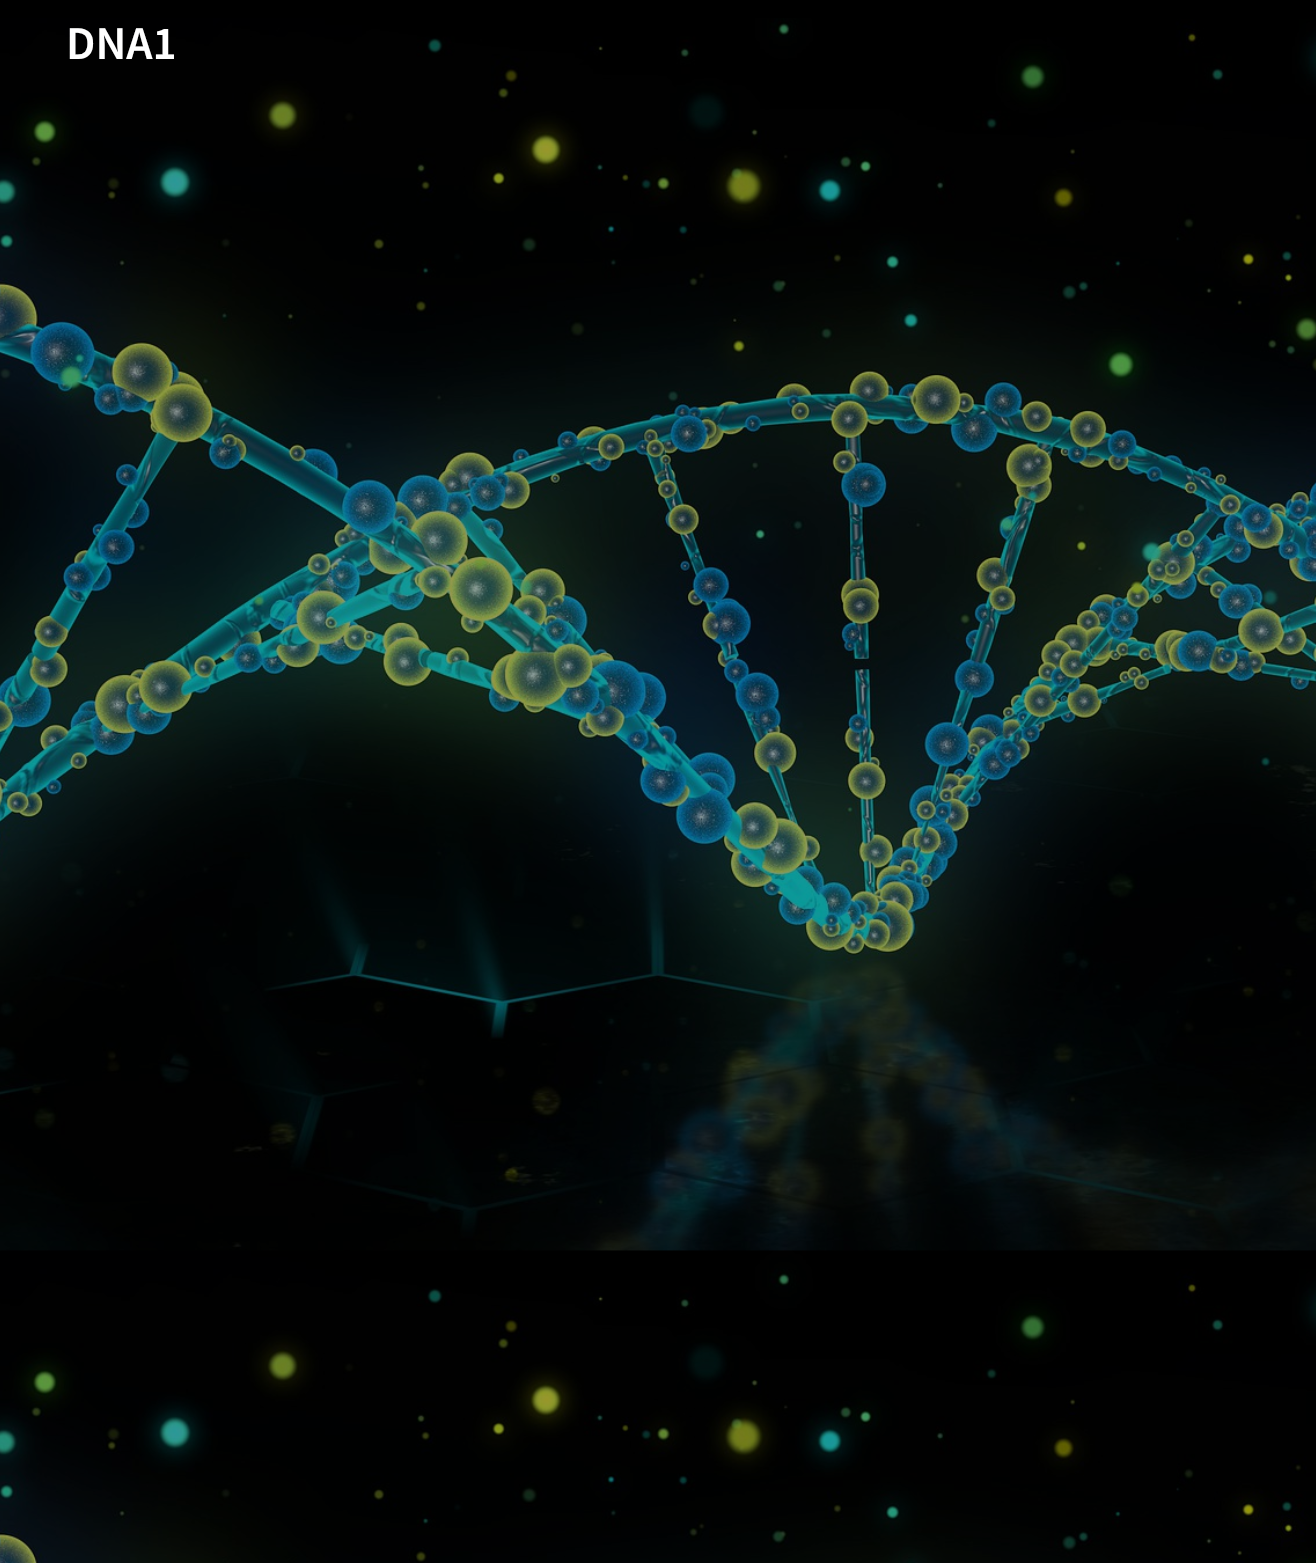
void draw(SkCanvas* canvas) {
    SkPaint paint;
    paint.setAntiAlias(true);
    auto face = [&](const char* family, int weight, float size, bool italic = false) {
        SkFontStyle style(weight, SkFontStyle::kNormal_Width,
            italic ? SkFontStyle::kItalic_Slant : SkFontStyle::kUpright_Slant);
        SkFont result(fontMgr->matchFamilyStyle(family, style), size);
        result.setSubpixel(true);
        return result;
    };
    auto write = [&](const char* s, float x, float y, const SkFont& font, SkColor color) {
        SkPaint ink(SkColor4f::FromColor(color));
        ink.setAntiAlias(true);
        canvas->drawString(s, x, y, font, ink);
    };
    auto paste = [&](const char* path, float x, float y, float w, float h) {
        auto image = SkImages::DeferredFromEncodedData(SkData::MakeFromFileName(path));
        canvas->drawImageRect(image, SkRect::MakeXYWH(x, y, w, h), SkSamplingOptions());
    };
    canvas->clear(SK_ColorBLACK);
    paste("pic1.png", 0, 18, 1316, 1545);
    auto kFont1 = face("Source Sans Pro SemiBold", 600, 47);
    write("DNA1", 66, 59, kFont1, SK_ColorWHITE);
}
